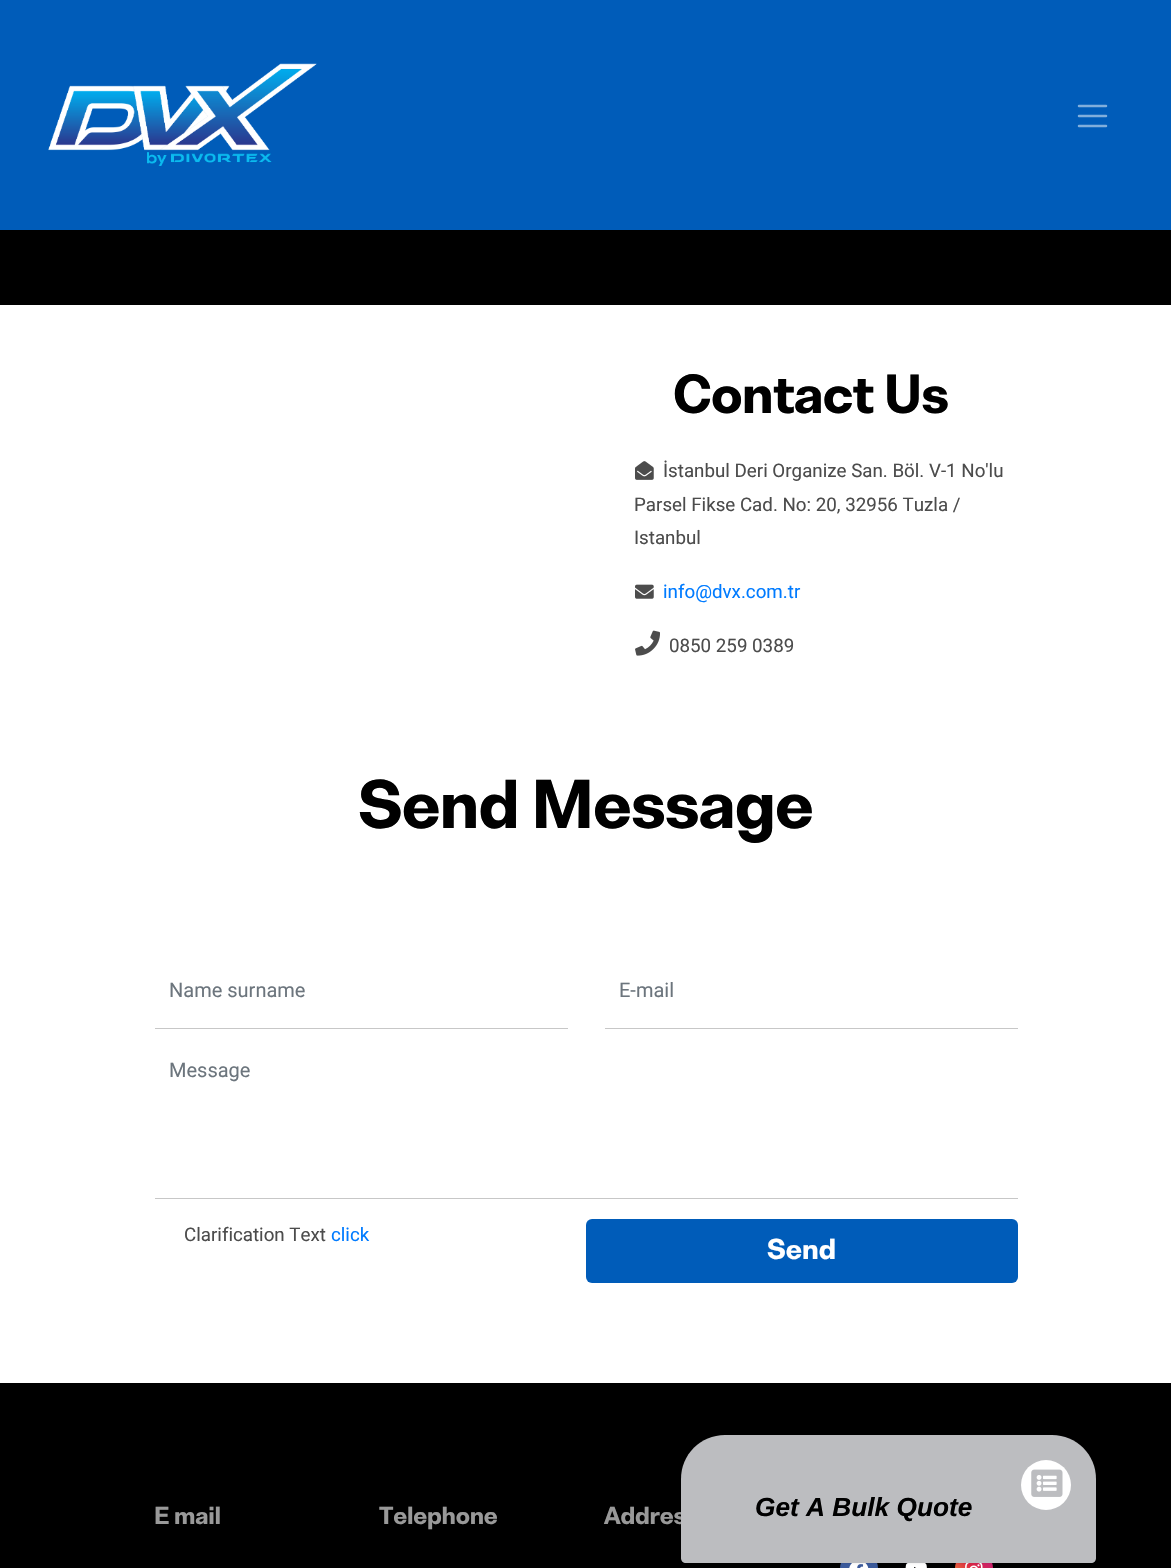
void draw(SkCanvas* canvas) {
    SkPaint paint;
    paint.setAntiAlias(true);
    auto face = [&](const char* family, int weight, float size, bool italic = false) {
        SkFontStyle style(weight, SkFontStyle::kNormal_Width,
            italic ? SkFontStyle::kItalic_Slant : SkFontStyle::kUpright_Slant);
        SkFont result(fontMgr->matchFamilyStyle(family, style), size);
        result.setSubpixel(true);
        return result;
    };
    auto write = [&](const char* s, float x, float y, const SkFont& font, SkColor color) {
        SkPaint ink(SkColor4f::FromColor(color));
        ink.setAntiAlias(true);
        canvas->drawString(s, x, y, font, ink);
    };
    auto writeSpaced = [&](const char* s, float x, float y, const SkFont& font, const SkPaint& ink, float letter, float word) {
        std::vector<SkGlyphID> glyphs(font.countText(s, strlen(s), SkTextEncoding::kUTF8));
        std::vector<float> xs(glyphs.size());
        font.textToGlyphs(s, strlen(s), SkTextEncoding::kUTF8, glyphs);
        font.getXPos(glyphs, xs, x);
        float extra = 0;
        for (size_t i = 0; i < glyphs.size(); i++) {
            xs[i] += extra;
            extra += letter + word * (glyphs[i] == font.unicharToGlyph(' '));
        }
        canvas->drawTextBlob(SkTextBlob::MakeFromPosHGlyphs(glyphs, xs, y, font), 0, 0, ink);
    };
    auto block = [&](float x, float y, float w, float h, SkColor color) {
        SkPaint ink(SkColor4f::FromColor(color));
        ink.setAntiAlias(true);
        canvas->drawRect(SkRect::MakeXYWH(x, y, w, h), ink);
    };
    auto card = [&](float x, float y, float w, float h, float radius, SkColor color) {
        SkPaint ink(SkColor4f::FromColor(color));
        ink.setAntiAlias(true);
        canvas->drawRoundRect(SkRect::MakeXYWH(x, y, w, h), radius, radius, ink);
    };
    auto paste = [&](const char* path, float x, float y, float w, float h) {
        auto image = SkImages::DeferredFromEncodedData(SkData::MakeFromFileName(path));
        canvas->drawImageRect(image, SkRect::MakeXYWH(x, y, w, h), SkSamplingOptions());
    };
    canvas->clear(SK_ColorWHITE);
    block(0, 0, 1171, 230, SkColorSetRGB(0, 92, 185));
    paste("pic1.png", 48, 63, 269, 103);
    paint.setStyle(SkPaint::kStroke_Style);
    paint.setStrokeWidth(2.5f);
    paint.setStrokeCap(SkPaint::kRound_Cap);
    paint.setColor(SkColorSetRGB(128, 174, 220));
    canvas->drawPath(SkPathBuilder().moveTo(1079, 106).lineTo(1106, 106).moveTo(1079, 116).lineTo(1106, 116).moveTo(1079, 126).lineTo(1106, 126).detach(), paint);
    block(0, 230, 1171, 75, SK_ColorBLACK);
    auto kFont1 = face("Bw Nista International", 800, 50);
    paint.setStyle(SkPaint::kFill_Style);
    paint.setColor(SK_ColorBLACK);
    writeSpaced("Contact Us", 673, 413, kFont1, paint, -0.75f, 0);
    paste("pic2.png", 635, 461, 19, 19);
    auto kFont2 = face("Roboto", 400, 18.75f);
    write("İstanbul Deri Organize San. Böl. V-1 No'lu", 663, 477, kFont2, SkColorSetRGB(76, 76, 76));
    write("Parsel Fikse Cad. No: 20, 32956 Tuzla /", 634, 511, kFont2, SkColorSetRGB(76, 76, 76));
    write("Istanbul", 634, 544, kFont2, SkColorSetRGB(76, 76, 76));
    paste("pic3.png", 635, 584, 19, 15);
    write("info@dvx.com.tr", 663, 598, kFont2, SkColorSetRGB(0, 123, 255));
    paste("pic4.png", 635, 630, 25, 26);
    write("0850 259 0389", 669, 652, kFont2, SkColorSetRGB(76, 76, 76));
    auto kFont3 = face("Bw Nista International", 800, 62.5f);
    writeSpaced("Send Message", 358, 828, kFont3, paint, -1, 0);
    block(155, 1028, 413, 1, SkColorSetRGB(199, 199, 199));
    auto kFont4 = face("Roboto", 400, 20);
    write("Name surname", 169, 997, kFont4, SkColorSetRGB(108, 117, 125));
    block(605, 1028, 413, 1, SkColorSetRGB(199, 199, 199));
    write("E-mail", 619, 997, kFont4, SkColorSetRGB(108, 117, 125));
    block(155, 1198, 863, 1, SkColorSetRGB(199, 199, 199));
    write("Message", 169, 1077, kFont4, SkColorSetRGB(108, 117, 125));
    write("Clarification Text", 184, 1241, kFont2, SkColorSetRGB(76, 76, 76));
    write("click", 331, 1241, kFont2, SkColorSetRGB(0, 123, 255));
    card(586, 1219, 432, 64, 6, SkColorSetRGB(0, 92, 185));
    auto kFont5 = face("Bw Nista International", 800, 26.25f);
    write("Send", 767, 1259, kFont5, SK_ColorWHITE);
    block(0, 1383, 1171, 185, SK_ColorBLACK);
    auto kFont6 = face("Bw Nista International", 800, 22.5f);
    paint.setColor(SkColorSetRGB(153, 153, 153));
    writeSpaced("E mail", 154, 1524, kFont6, paint, -0.25f, 0);
    writeSpaced("Telephone", 379, 1524, kFont6, paint, -0.25f, 0);
    writeSpaced("Addres", 604, 1524, kFont6, paint, -0.25f, 0);
    card(840, 1550, 38, 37, 19, SkColorSetRGB(59, 90, 155));
    paste("pic5.png", 849, 1563, 20, 5);
    paste("pic6.png", 905, 1563, 22, 5);
    {
        const SkColor colors[] = {SkColorSetRGB(240, 148, 51), SkColorSetRGB(230, 104, 60), SkColorSetRGB(220, 39, 67), SkColorSetRGB(204, 35, 102), SkColorSetRGB(188, 24, 136)};
        const float stops[] = {0, 0.25f, 0.5f, 0.75f, 1};
        const SkPoint ends[] = {{955, 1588}, {993, 1550}};
        paint.setShader(SkGradientShader::MakeLinear(ends, colors, stops, 5, SkTileMode::kClamp));
        paint.setAlpha(255);
    }
    canvas->drawRoundRect(SkRect::MakeXYWH(955, 1550, 38, 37), 19, 19, paint);
    paste("pic7.png", 965, 1563, 18, 5);
    paint.setShader(nullptr);
    paint.setColor(SkColorSetARGB(13, 0, 0, 0));
    paint.setMaskFilter(SkMaskFilter::MakeBlur(kNormal_SkBlurStyle, 1));
    canvas->drawRoundRect(SkRect::MakeXYWH(681, 1436, 415, 128), 44, 44, paint);
    paint.setMaskFilter(nullptr);
    paint.setColor(SkColorSetRGB(188, 189, 192));
    canvas->drawPath(SkPathBuilder().moveTo(725, 1435).lineTo(1052, 1435).cubicTo(1076.5f, 1435, 1096, 1454.5f, 1096, 1479).lineTo(1096, 1558).cubicTo(1096, 1561, 1094, 1563, 1091, 1563).lineTo(686, 1563).cubicTo(683, 1563, 681, 1561, 681, 1558).lineTo(681, 1479).cubicTo(681, 1454.5f, 700.5f, 1435, 725, 1435).close().detach(), paint);
    auto kFont7 = face("Liberation Sans", 700, 26.25f, true);
    write("Get A Bulk Quote", 755, 1516, kFont7, SK_ColorBLACK);
    paint.setColor(SK_ColorWHITE);
    canvas->drawCircle(1046, 1485, 25, paint);
    paste("pic8.png", 1031, 1469, 32, 28);
}
